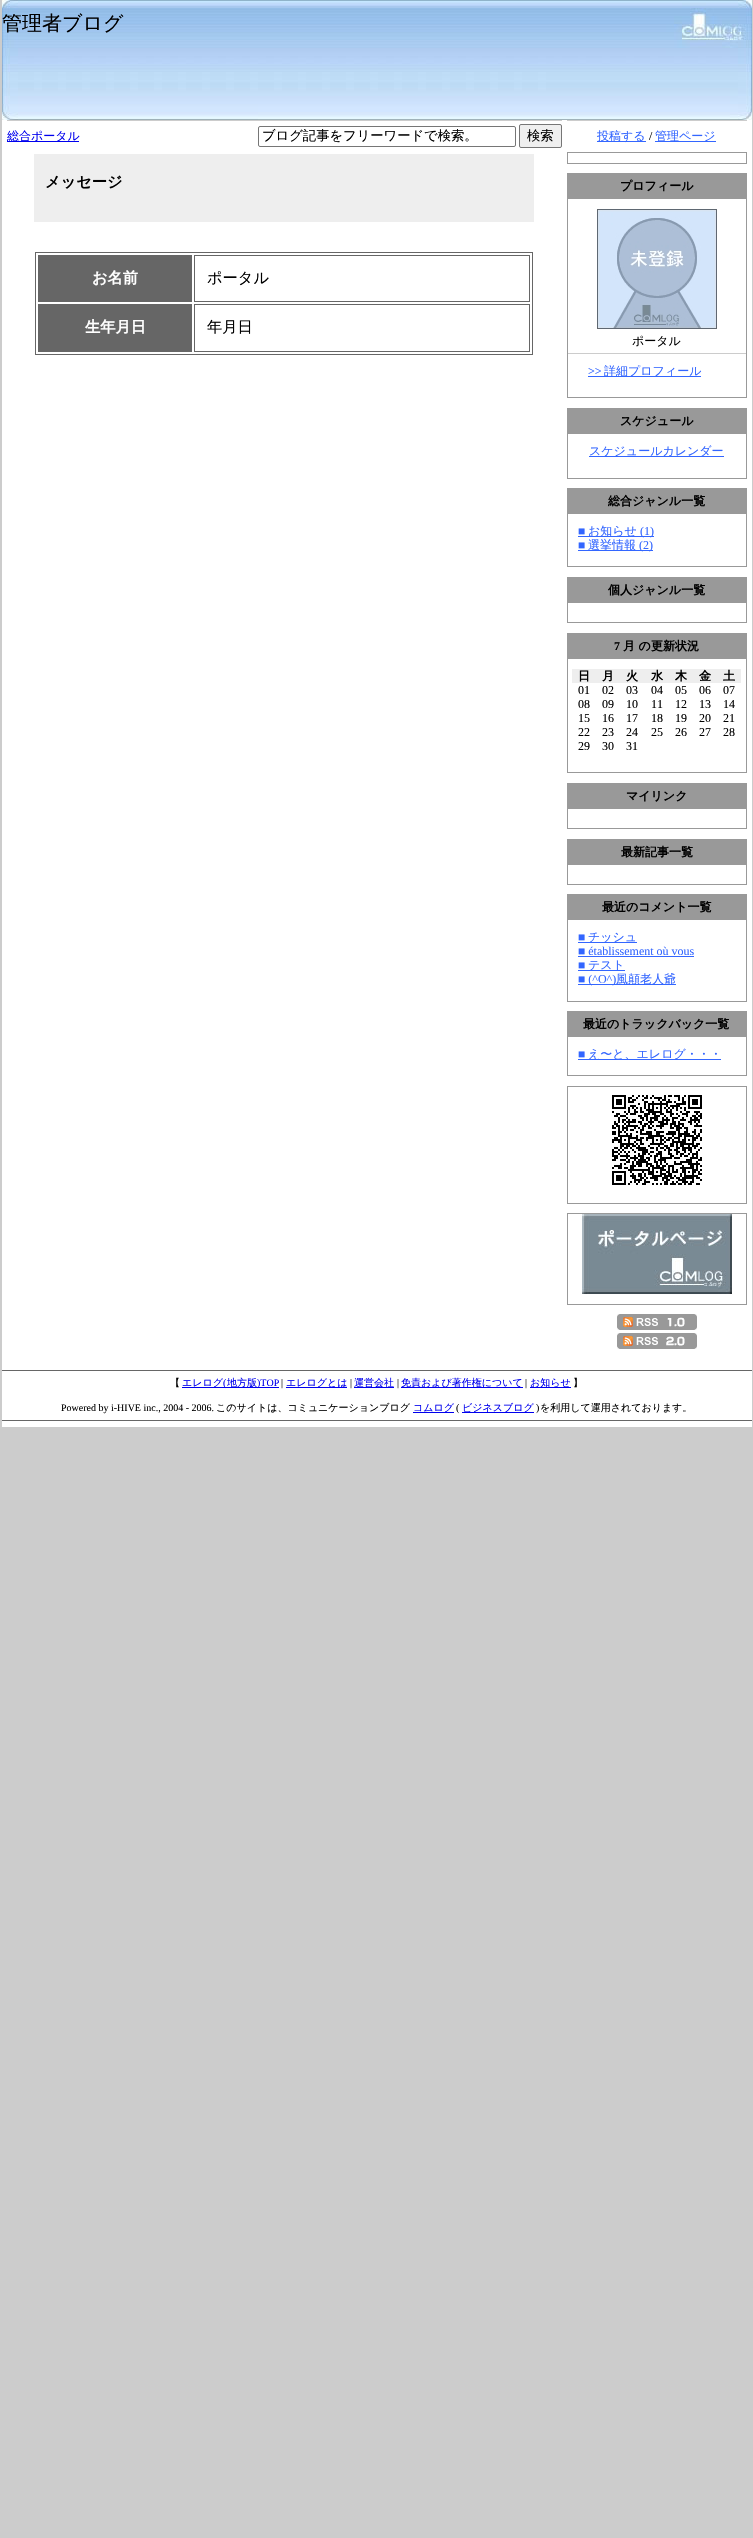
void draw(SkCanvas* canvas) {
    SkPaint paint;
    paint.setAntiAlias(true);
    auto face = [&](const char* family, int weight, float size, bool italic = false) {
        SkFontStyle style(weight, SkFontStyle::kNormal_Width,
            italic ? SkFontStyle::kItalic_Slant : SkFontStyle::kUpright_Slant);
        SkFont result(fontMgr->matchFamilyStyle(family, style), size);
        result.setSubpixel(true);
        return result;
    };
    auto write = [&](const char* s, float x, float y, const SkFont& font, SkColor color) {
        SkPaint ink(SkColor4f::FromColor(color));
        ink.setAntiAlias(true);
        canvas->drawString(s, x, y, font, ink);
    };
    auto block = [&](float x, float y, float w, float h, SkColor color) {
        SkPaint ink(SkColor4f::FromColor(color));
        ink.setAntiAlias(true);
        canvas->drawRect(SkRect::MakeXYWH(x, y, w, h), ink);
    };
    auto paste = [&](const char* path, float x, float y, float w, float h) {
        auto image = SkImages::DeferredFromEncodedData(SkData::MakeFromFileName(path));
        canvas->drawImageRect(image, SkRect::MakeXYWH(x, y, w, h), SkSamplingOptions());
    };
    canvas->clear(SkColorSetRGB(204, 204, 204));
    block(2, 120, 750, 1307, SK_ColorWHITE);
    paste("pic1.png", 2, 0, 750, 120);
    auto kFont1 = face("WenQuanYi Zen Hei", 500, 20);
    write("管理者ブログ", 2, 30, kFont1, SK_ColorBLACK);
    block(7, 120, 555, 1, SkColorSetRGB(204, 204, 204));
    block(7, 141, 72, 1, SkColorSetRGB(0, 0, 238));
    auto kFont2 = face("WenQuanYi Zen Hei", 500, 12);
    write("総合ポータル", 7, 140, kFont2, SkColorSetRGB(0, 0, 238));
    paint.setStyle(SkPaint::kStroke_Style);
    paint.setStrokeWidth(1);
    paint.setColor(SkColorSetRGB(118, 118, 118));
    canvas->drawRoundRect(SkRect::MakeXYWH(258.5f, 126.5f, 257, 20), 1.5f, 1.5f, paint);
    auto kFont3 = face("WenQuanYi Zen Hei", 500, 13.3f);
    write("ブログ記事をフリーワードで検索。", 262, 140, kFont3, SK_ColorBLACK);
    paint.setStyle(SkPaint::kFill_Style);
    paint.setColor(SkColorSetRGB(239, 239, 239));
    canvas->drawRoundRect(SkRect::MakeXYWH(519.5f, 124.5f, 42, 23), 1.5f, 1.5f, paint);
    paint.setStyle(SkPaint::kStroke_Style);
    paint.setColor(SkColorSetRGB(118, 118, 118));
    canvas->drawRoundRect(SkRect::MakeXYWH(519.5f, 124.5f, 42, 23), 1.5f, 1.5f, paint);
    write("検索", 527, 140, kFont3, SK_ColorBLACK);
    block(34, 154, 500, 68, SkColorSetRGB(238, 238, 238));
    auto kFont4 = face("WenQuanYi Zen Hei", 700, 15.25f);
    write("メッセージ", 45, 187, kFont4, SK_ColorBLACK);
    paint.setColor(SkColorSetRGB(102, 102, 102));
    canvas->drawRect(SkRect::MakeXYWH(35.5f, 252.5f, 497, 102), paint);
    block(38, 255, 154, 47, SkColorSetRGB(102, 102, 102));
    write("お名前", 92, 283, kFont4, SK_ColorWHITE);
    canvas->drawRect(SkRect::MakeXYWH(194.5f, 255.5f, 335, 46), paint);
    auto kFont5 = face("WenQuanYi Zen Hei", 500, 15.25f);
    write("ポータル", 207, 283, kFont5, SK_ColorBLACK);
    block(38, 304, 154, 48, SkColorSetRGB(102, 102, 102));
    write("生年月日", 85, 332, kFont4, SK_ColorWHITE);
    canvas->drawRect(SkRect::MakeXYWH(194.5f, 304.5f, 335, 47), paint);
    write("年月日", 207, 332, kFont5, SK_ColorBLACK);
    block(567, 120, 180, 1, SkColorSetRGB(204, 204, 204));
    block(597, 141, 49, 1, SkColorSetRGB(51, 102, 255));
    write("投稿する", 597, 140, kFont2, SkColorSetRGB(51, 102, 255));
    auto kFont6 = face("Liberation Serif", 400, 12);
    write("/", 649, 140, kFont6, SK_ColorBLACK);
    block(655, 141, 61, 1, SkColorSetRGB(51, 102, 255));
    write("管理ページ", 655, 140, kFont2, SkColorSetRGB(51, 102, 255));
    paint.setColor(SkColorSetRGB(153, 153, 153));
    canvas->drawRect(SkRect::MakeXYWH(567.5f, 152.5f, 179, 11), paint);
    canvas->drawRect(SkRect::MakeXYWH(567.5f, 173.5f, 179, 224), paint);
    block(568, 174, 178, 25, SkColorSetRGB(153, 153, 153));
    auto kFont7 = face("WenQuanYi Zen Hei", 700, 12);
    write("プロフィール", 620, 190, kFont7, SK_ColorBLACK);
    paste("pic2.png", 597, 209, 120, 120);
    write("ポータル", 632, 345, kFont2, SK_ColorBLACK);
    block(568, 353, 178, 1, SkColorSetRGB(204, 204, 204));
    write(">>", 588, 375, kFont6, SkColorSetRGB(51, 102, 255));
    block(588, 376, 113, 1, SkColorSetRGB(51, 102, 255));
    write("詳細プロフィール", 604, 375, kFont2, SkColorSetRGB(51, 102, 255));
    canvas->drawRect(SkRect::MakeXYWH(567.5f, 408.5f, 179, 70), paint);
    block(568, 409, 178, 25, SkColorSetRGB(153, 153, 153));
    write("スケジュール", 620, 425, kFont7, SK_ColorBLACK);
    block(589, 456, 135, 1, SkColorSetRGB(51, 102, 255));
    write("スケジュールカレンダー", 589, 455, kFont2, SkColorSetRGB(51, 102, 255));
    canvas->drawRect(SkRect::MakeXYWH(567.5f, 488.5f, 179, 78), paint);
    block(568, 489, 178, 25, SkColorSetRGB(153, 153, 153));
    write("総合ジャンル一覧", 608, 505, kFont7, SK_ColorBLACK);
    write("■", 578, 535, kFont6, SkColorSetRGB(51, 102, 255));
    block(578, 536, 76, 1, SkColorSetRGB(51, 102, 255));
    write("お知らせ", 588, 535, kFont2, SkColorSetRGB(51, 102, 255));
    write("(1)", 640, 535, kFont6, SkColorSetRGB(51, 102, 255));
    write("■", 578, 549, kFont6, SkColorSetRGB(51, 102, 255));
    block(578, 550, 75, 1, SkColorSetRGB(51, 102, 255));
    write("選挙情報", 588, 549, kFont2, SkColorSetRGB(51, 102, 255));
    write("(2)", 639, 549, kFont6, SkColorSetRGB(51, 102, 255));
    canvas->drawRect(SkRect::MakeXYWH(567.5f, 577.5f, 179, 45), paint);
    block(568, 578, 178, 25, SkColorSetRGB(153, 153, 153));
    write("個人ジャンル一覧", 608, 594, kFont7, SK_ColorBLACK);
    canvas->drawRect(SkRect::MakeXYWH(567.5f, 633.5f, 179, 139), paint);
    block(568, 634, 178, 25, SkColorSetRGB(153, 153, 153));
    auto kFont8 = face("Liberation Serif", 700, 12);
    write("7", 614, 650, kFont8, SK_ColorBLACK);
    write("月 の更新状況", 623, 650, kFont7, SK_ColorBLACK);
    block(572, 669, 169, 14, SkColorSetRGB(238, 238, 238));
    write("日", 578, 680, kFont7, SK_ColorBLACK);
    write("月", 602, 680, kFont7, SK_ColorBLACK);
    write("火", 626, 680, kFont7, SK_ColorBLACK);
    write("水", 651, 680, kFont7, SK_ColorBLACK);
    write("木", 675, 680, kFont7, SK_ColorBLACK);
    write("金", 699, 680, kFont7, SK_ColorBLACK);
    write("土", 723, 680, kFont7, SK_ColorBLACK);
    write("01", 578, 694, kFont6, SK_ColorBLACK);
    write("02", 602, 694, kFont6, SK_ColorBLACK);
    write("03", 626, 694, kFont6, SK_ColorBLACK);
    write("04", 651, 694, kFont6, SK_ColorBLACK);
    write("05", 675, 694, kFont6, SK_ColorBLACK);
    write("06", 699, 694, kFont6, SK_ColorBLACK);
    write("07", 723, 694, kFont6, SK_ColorBLACK);
    write("08", 578, 708, kFont6, SK_ColorBLACK);
    write("09", 602, 708, kFont6, SK_ColorBLACK);
    write("10", 626, 708, kFont6, SK_ColorBLACK);
    write("11", 651, 708, kFont6, SK_ColorBLACK);
    write("12", 675, 708, kFont6, SK_ColorBLACK);
    write("13", 699, 708, kFont6, SK_ColorBLACK);
    write("14", 723, 708, kFont6, SK_ColorBLACK);
    write("15", 578, 722, kFont6, SK_ColorBLACK);
    write("16", 602, 722, kFont6, SK_ColorBLACK);
    write("17", 626, 722, kFont6, SK_ColorBLACK);
    write("18", 651, 722, kFont6, SK_ColorBLACK);
    write("19", 675, 722, kFont6, SK_ColorBLACK);
    write("20", 699, 722, kFont6, SK_ColorBLACK);
    write("21", 723, 722, kFont6, SK_ColorBLACK);
    write("22", 578, 736, kFont6, SK_ColorBLACK);
    write("23", 602, 736, kFont6, SK_ColorBLACK);
    write("24", 626, 736, kFont6, SK_ColorBLACK);
    write("25", 651, 736, kFont6, SK_ColorBLACK);
    write("26", 675, 736, kFont6, SK_ColorBLACK);
    write("27", 699, 736, kFont6, SK_ColorBLACK);
    write("28", 723, 736, kFont6, SK_ColorBLACK);
    write("29", 578, 750, kFont6, SK_ColorBLACK);
    write("30", 602, 750, kFont6, SK_ColorBLACK);
    write("31", 626, 750, kFont6, SK_ColorBLACK);
    canvas->drawRect(SkRect::MakeXYWH(567.5f, 783.5f, 179, 45), paint);
    block(568, 784, 178, 25, SkColorSetRGB(153, 153, 153));
    write("マイリンク", 626, 800, kFont7, SK_ColorBLACK);
    canvas->drawRect(SkRect::MakeXYWH(567.5f, 839.5f, 179, 45), paint);
    block(568, 840, 178, 25, SkColorSetRGB(153, 153, 153));
    write("最新記事一覧", 621, 856, kFont7, SK_ColorBLACK);
    canvas->drawRect(SkRect::MakeXYWH(567.5f, 894.5f, 179, 107), paint);
    block(568, 895, 178, 25, SkColorSetRGB(153, 153, 153));
    write("最近のコメント一覧", 602, 911, kFont7, SK_ColorBLACK);
    write("■", 578, 941, kFont6, SkColorSetRGB(51, 102, 255));
    block(578, 942, 59, 1, SkColorSetRGB(51, 102, 255));
    write("チッシュ", 588, 941, kFont2, SkColorSetRGB(51, 102, 255));
    write("■ établissement où vous", 578, 955, kFont6, SkColorSetRGB(51, 102, 255));
    block(578, 956, 116, 1, SkColorSetRGB(51, 102, 255));
    write("■", 578, 969, kFont6, SkColorSetRGB(51, 102, 255));
    block(578, 970, 47, 1, SkColorSetRGB(51, 102, 255));
    write("テスト", 588, 969, kFont2, SkColorSetRGB(51, 102, 255));
    block(578, 984, 98, 1, SkColorSetRGB(51, 102, 255));
    write("■ (^O^)", 578, 983, kFont6, SkColorSetRGB(51, 102, 255));
    write("風顛老人爺", 616, 983, kFont2, SkColorSetRGB(51, 102, 255));
    canvas->drawRect(SkRect::MakeXYWH(567.5f, 1011.5f, 179, 64), paint);
    block(568, 1012, 178, 25, SkColorSetRGB(153, 153, 153));
    write("最近のトラックバック一覧", 583, 1028, kFont7, SK_ColorBLACK);
    write("■", 578, 1058, kFont6, SkColorSetRGB(51, 102, 255));
    block(578, 1059, 143, 1, SkColorSetRGB(51, 102, 255));
    write("え〜と、エレログ・・・", 588, 1058, kFont2, SkColorSetRGB(51, 102, 255));
    canvas->drawRect(SkRect::MakeXYWH(567.5f, 1086.5f, 179, 117), paint);
    paste("pic3.png", 612, 1095, 90, 90);
    canvas->drawRect(SkRect::MakeXYWH(567.5f, 1213.5f, 179, 91), paint);
    paste("pic4.png", 582, 1214, 150, 80);
    paste("pic5.png", 617, 1314, 80, 16);
    paste("pic6.png", 617, 1333, 80, 16);
    block(2, 1370, 750, 1, SkColorSetRGB(102, 102, 102));
    block(2, 1420, 750, 1, SkColorSetRGB(102, 102, 102));
    auto kFont9 = face("WenQuanYi Zen Hei", 500, 10);
    write("【", 170, 1386, kFont9, SK_ColorBLACK);
    block(182, 1387, 97, 1, SkColorSetRGB(0, 0, 238));
    write("エレログ", 182, 1386, kFont9, SkColorSetRGB(0, 0, 238));
    auto kFont10 = face("Liberation Serif", 400, 10);
    write("(", 223, 1386, kFont10, SkColorSetRGB(0, 0, 238));
    write("地方版", 227, 1386, kFont9, SkColorSetRGB(0, 0, 238));
    write(")TOP", 257, 1386, kFont10, SkColorSetRGB(0, 0, 238));
    write("|", 281, 1386, kFont10, SK_ColorBLACK);
    block(286, 1387, 61, 1, SkColorSetRGB(0, 0, 238));
    write("エレログとは", 286, 1386, kFont9, SkColorSetRGB(0, 0, 238));
    write("|", 350, 1386, kFont10, SK_ColorBLACK);
    block(354, 1387, 40, 1, SkColorSetRGB(0, 0, 238));
    write("運営会社", 354, 1386, kFont9, SkColorSetRGB(0, 0, 238));
    write("|", 397, 1386, kFont10, SK_ColorBLACK);
    block(401, 1387, 122, 1, SkColorSetRGB(0, 0, 238));
    write("免責および著作権について", 401, 1386, kFont9, SkColorSetRGB(0, 0, 238));
    write("|", 525, 1386, kFont10, SK_ColorBLACK);
    block(530, 1387, 41, 1, SkColorSetRGB(0, 0, 238));
    write("お知らせ", 530, 1386, kFont9, SkColorSetRGB(0, 0, 238));
    write("】", 573, 1386, kFont9, SK_ColorBLACK);
    write("Powered by i-HIVE inc., 2004 - 2006.", 61, 1411, kFont10, SK_ColorBLACK);
    write("このサイトは、コミュニケーションブログ", 216, 1411, kFont9, SK_ColorBLACK);
    block(413, 1412, 41, 1, SkColorSetRGB(0, 0, 238));
    write("コムログ", 413, 1411, kFont9, SkColorSetRGB(0, 0, 238));
    write("(", 456, 1411, kFont10, SK_ColorBLACK);
    block(462, 1412, 72, 1, SkColorSetRGB(0, 0, 238));
    write("ビジネスブログ", 462, 1411, kFont9, SkColorSetRGB(0, 0, 238));
    write(")", 536, 1411, kFont10, SK_ColorBLACK);
    write("を利用して運用されております。", 540, 1411, kFont9, SK_ColorBLACK);
}
